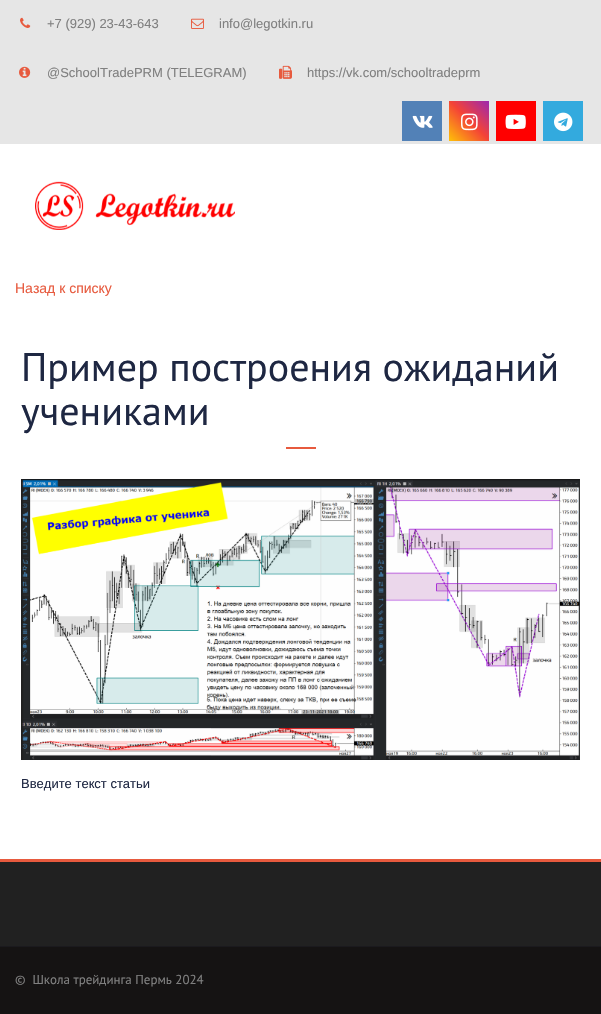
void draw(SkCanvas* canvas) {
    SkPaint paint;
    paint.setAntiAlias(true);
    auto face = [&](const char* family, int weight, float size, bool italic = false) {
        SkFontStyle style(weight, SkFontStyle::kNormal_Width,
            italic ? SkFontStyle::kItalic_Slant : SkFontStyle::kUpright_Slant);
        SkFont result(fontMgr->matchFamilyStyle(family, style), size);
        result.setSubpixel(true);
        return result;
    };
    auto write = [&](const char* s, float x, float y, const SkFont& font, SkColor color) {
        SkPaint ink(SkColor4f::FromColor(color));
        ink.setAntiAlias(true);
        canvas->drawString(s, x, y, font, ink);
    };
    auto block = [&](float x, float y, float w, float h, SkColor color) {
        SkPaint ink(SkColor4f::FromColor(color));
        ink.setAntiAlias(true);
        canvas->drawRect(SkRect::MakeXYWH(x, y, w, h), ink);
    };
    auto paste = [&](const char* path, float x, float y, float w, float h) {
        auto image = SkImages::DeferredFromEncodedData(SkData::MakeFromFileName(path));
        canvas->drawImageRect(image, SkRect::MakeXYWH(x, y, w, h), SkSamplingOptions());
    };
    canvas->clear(SK_ColorWHITE);
    block(0, 0, 601, 144, SkColorSetRGB(230, 230, 230));
    paste("pic1.png", 20, 17, 11, 11);
    auto kFont1 = face("Liberation Sans", 400, 13);
    write("+7 (929) 23-43-643", 47, 28, kFont1, SkColorSetRGB(128, 128, 128));
    paste("pic2.png", 191, 18, 13, 11);
    write("info@legotkin.ru", 219, 28, kFont1, SkColorSetRGB(128, 128, 128));
    paste("pic3.png", 19, 66, 12, 12);
    write("@SchoolTradePRM (TELEGRAM)", 47, 77, kFont1, SkColorSetRGB(128, 128, 128));
    paste("pic4.png", 279, 65, 13, 14);
    write("https://vk.com/schooltradeprm", 307, 77, kFont1, SkColorSetRGB(128, 128, 128));
    block(402, 101, 40, 40, SkColorSetRGB(82, 129, 183));
    paste("pic5.png", 412, 115, 21, 13);
    {
        const SkColor colors[] = {SkColorSetRGB(255, 193, 7), SkColorSetRGB(244, 67, 54), SkColorSetRGB(156, 39, 176)};
        const float stops[] = {0, 0.51f, 1};
        const SkPoint ends[] = {{449, 141}, {489, 101}};
        paint.setShader(SkGradientShader::MakeLinear(ends, colors, stops, 3, SkTileMode::kClamp));
        paint.setAlpha(255);
    }
    canvas->drawRect(SkRect::MakeXYWH(449, 101, 40, 40), paint);
    paste("pic6.png", 461, 113, 17, 18);
    block(496, 101, 40, 40, SkColorSetRGB(255, 0, 0));
    paste("pic7.png", 505, 114, 21, 15);
    block(543, 101, 40, 40, SkColorSetRGB(51, 170, 222));
    paste("pic8.png", 554, 112, 19, 20);
    paste("pic9.png", 35, 181, 200, 49);
    auto kFont2 = face("Liberation Sans", 400, 14);
    write("Назад к списку", 15, 293, kFont2, SkColorSetRGB(231, 90, 62));
    auto kFont3 = face("PT Sans", 400, 40);
    write("Пример построения ожиданий", 21, 381, kFont3, SkColorSetRGB(30, 39, 66));
    write("учениками", 21, 425, kFont3, SkColorSetRGB(30, 39, 66));
    block(286, 447, 30, 2, SkColorSetRGB(231, 90, 62));
    paste("pic10.png", 21, 479, 559, 281);
    write("Введите текст статьи", 21, 788, kFont1, SkColorSetRGB(30, 39, 66));
    block(0, 862, 601, 84, SkColorSetRGB(33, 33, 33));
    block(0, 859, 601, 3, SkColorSetRGB(231, 90, 62));
    block(0, 947, 601, 67, SkColorSetRGB(21, 19, 19));
    block(0, 946, 601, 1, SkColorSetRGB(27, 26, 30));
    auto kFont4 = face("PT Sans", 400, 13);
    write("©  Школа трейдинга Пермь 2024", 15, 984, kFont4, SkColorSetRGB(128, 128, 128));
}
